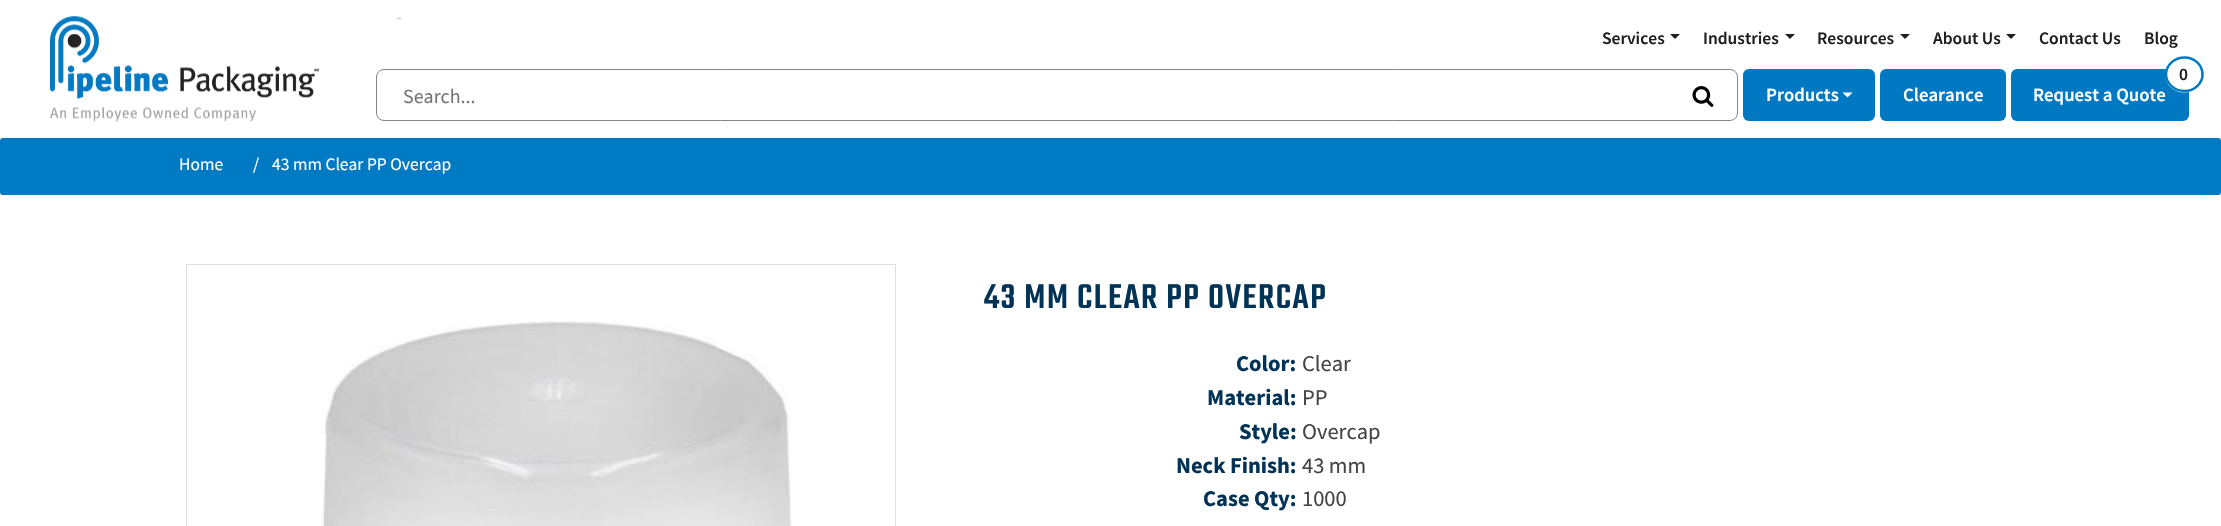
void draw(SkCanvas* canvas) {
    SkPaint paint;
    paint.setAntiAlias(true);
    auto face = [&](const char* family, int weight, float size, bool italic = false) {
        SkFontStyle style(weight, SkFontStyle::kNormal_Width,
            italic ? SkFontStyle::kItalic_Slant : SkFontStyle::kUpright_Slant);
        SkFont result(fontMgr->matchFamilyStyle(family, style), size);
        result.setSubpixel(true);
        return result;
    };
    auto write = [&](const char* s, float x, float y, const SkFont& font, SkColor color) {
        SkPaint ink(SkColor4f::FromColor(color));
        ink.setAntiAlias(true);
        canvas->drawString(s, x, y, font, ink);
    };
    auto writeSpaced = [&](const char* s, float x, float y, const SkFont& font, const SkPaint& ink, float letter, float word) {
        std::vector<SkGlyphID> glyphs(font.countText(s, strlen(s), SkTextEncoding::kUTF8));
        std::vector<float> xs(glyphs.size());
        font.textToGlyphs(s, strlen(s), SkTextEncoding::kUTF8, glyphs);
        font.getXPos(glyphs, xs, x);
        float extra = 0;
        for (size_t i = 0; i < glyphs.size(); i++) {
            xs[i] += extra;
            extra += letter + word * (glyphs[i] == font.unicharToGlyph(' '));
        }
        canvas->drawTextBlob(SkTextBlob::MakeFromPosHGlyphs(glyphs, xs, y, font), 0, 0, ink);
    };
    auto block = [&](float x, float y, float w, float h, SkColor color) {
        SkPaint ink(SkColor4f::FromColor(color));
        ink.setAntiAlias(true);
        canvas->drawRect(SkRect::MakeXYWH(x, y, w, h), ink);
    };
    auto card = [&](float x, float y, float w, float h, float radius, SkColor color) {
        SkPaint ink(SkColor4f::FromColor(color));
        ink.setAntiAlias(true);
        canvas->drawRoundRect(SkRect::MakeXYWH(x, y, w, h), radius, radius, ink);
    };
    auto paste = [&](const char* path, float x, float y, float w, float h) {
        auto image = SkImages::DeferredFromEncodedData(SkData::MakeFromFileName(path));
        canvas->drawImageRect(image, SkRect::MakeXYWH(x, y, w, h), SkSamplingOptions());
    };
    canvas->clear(SK_ColorWHITE);
    paste("pic1.png", 50, 16, 269, 106);
    block(397, 17, 4, 3, SkColorSetRGB(227, 227, 227));
    auto kFont1 = face("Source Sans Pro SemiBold", 600, 17.5f);
    write("Services", 1602, 44, kFont1, SkColorSetRGB(35, 31, 32));
    paint.setColor(SkColorSetRGB(35, 31, 32));
    canvas->drawPath(SkPathBuilder().moveTo(1670, 34).lineTo(1680, 34).lineTo(1675, 39).close().detach(), paint);
    write("Industries", 1703, 44, kFont1, SkColorSetRGB(35, 31, 32));
    canvas->drawPath(SkPathBuilder().moveTo(1785, 34).lineTo(1795, 34).lineTo(1790, 39).close().detach(), paint);
    write("Resources", 1817, 44, kFont1, SkColorSetRGB(35, 31, 32));
    canvas->drawPath(SkPathBuilder().moveTo(1900, 34).lineTo(1910, 34).lineTo(1905, 39).close().detach(), paint);
    write("About Us", 1933, 44, kFont1, SkColorSetRGB(35, 31, 32));
    canvas->drawPath(SkPathBuilder().moveTo(2006, 34).lineTo(2016, 34).lineTo(2011, 39).close().detach(), paint);
    write("Contact Us", 2039, 44, kFont1, SkColorSetRGB(35, 31, 32));
    write("Blog", 2144, 44, kFont1, SkColorSetRGB(35, 31, 32));
    paint.setStyle(SkPaint::kStroke_Style);
    paint.setStrokeWidth(1);
    paint.setColor(SkColorSetRGB(133, 133, 133));
    canvas->drawRoundRect(SkRect::MakeXYWH(376.5f, 69.5f, 1361, 51), 7.5f, 7.5f, paint);
    auto kFont2 = face("Source Sans Pro", 400, 20);
    write("Search...", 403, 103, kFont2, SkColorSetRGB(117, 117, 117));
    paste("pic2.png", 1692, 86, 22, 21);
    card(1743, 69, 132, 52, 6, SkColorSetRGB(0, 121, 194));
    auto kFont3 = face("Source Sans Pro SemiBold", 600, 18.75f);
    write("Products", 1766, 101, kFont3, SK_ColorWHITE);
    paint.setStyle(SkPaint::kFill_Style);
    paint.setColor(SK_ColorWHITE);
    canvas->drawPath(SkPathBuilder().moveTo(1842.5f, 92.5f).lineTo(1852.5f, 92.5f).lineTo(1847.5f, 97.5f).close().detach(), paint);
    card(1880, 69, 126, 52, 6, SkColorSetRGB(0, 121, 194));
    write("Clearance", 1903, 101, kFont3, SK_ColorWHITE);
    card(2011, 69, 178, 52, 6, SkColorSetRGB(0, 121, 194));
    canvas->drawOval(SkRect::MakeXYWH(2165, 56.5f, 39, 36), paint);
    write("Request a Quote", 2033, 101, kFont3, SK_ColorWHITE);
    paint.setStyle(SkPaint::kStroke_Style);
    paint.setStrokeWidth(2.5f);
    paint.setColor(SkColorSetRGB(0, 121, 194));
    canvas->drawPath(SkPathBuilder().moveTo(2184.5f, 57.5f).cubicTo(2194.5f, 57.5f, 2202.5f, 65, 2202.5f, 74.5f).cubicTo(2202.5f, 83.5f, 2194.5f, 91, 2184.5f, 91).cubicTo(2174.5f, 91, 2166, 83.5f, 2166, 74.5f).cubicTo(2166, 65, 2174.5f, 57.5f, 2184.5f, 57.5f).close().detach(), paint);
    write("0", 2179, 80, kFont1, SkColorSetRGB(35, 31, 32));
    card(0, 138, 2221, 57, 3, SkColorSetRGB(0, 123, 195));
    auto kFont4 = face("Source Sans Pro", 400, 17.5f);
    write("Home", 179, 170, kFont4, SK_ColorWHITE);
    write("/", 253, 170, kFont4, SK_ColorWHITE);
    write("43 mm Clear PP Overcap", 272, 170, kFont4, SK_ColorWHITE);
    paint.setStrokeWidth(1);
    paint.setColor(SkColorSetRGB(223, 223, 220));
    canvas->drawRect(SkRect::MakeXYWH(186.5f, 264.5f, 709, 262), paint);
    paste("pic3.png", 322, 321, 470, 205);
    auto kFont5 = face("Teko", 500, 37.5f);
    paint.setStyle(SkPaint::kFill_Style);
    paint.setColor(SkColorSetRGB(1, 51, 86));
    writeSpaced("43 MM CLEAR PP OVERCAP", 984, 308, kFont5, paint, 1.5f, 0);
    auto kFont6 = face("Source Sans Pro", 700, 22.5f);
    write("Color:", 1236, 371, kFont6, SkColorSetRGB(1, 51, 86));
    auto kFont7 = face("Source Sans Pro", 400, 22.5f);
    write("Clear", 1302, 371, kFont7, SkColorSetRGB(68, 68, 68));
    write("Material:", 1207, 405, kFont6, SkColorSetRGB(1, 51, 86));
    write("PP", 1302, 405, kFont7, SkColorSetRGB(68, 68, 68));
    write("Style:", 1239, 439, kFont6, SkColorSetRGB(1, 51, 86));
    write("Overcap", 1302, 439, kFont7, SkColorSetRGB(68, 68, 68));
    write("Neck Finish:", 1176, 473, kFont6, SkColorSetRGB(1, 51, 86));
    write("43 mm", 1302, 473, kFont7, SkColorSetRGB(68, 68, 68));
    write("Case Qty:", 1203, 506, kFont6, SkColorSetRGB(1, 51, 86));
    write("1000", 1302, 506, kFont7, SkColorSetRGB(68, 68, 68));
}
